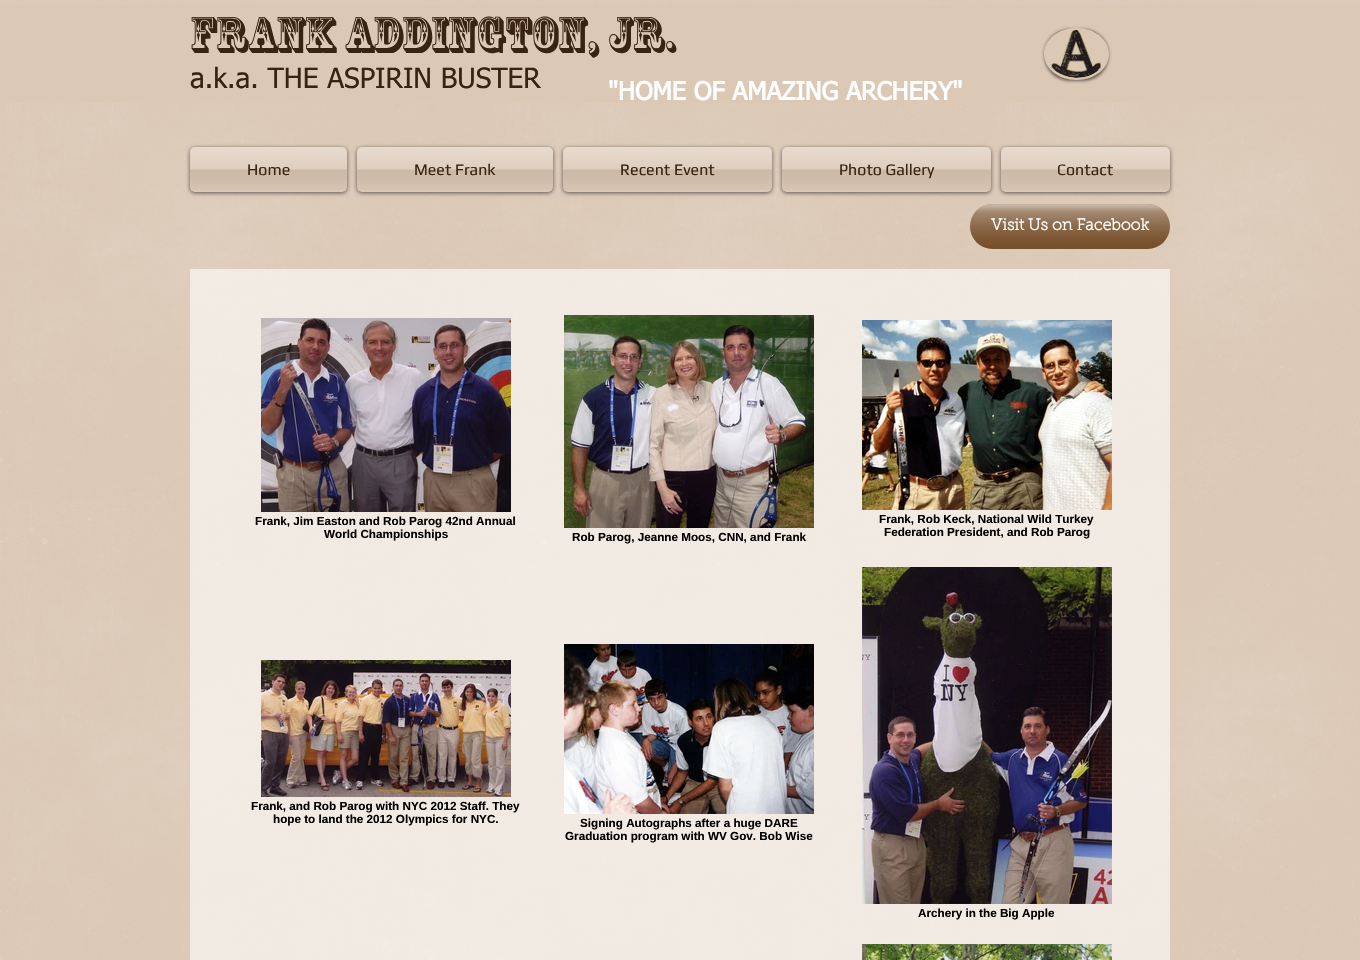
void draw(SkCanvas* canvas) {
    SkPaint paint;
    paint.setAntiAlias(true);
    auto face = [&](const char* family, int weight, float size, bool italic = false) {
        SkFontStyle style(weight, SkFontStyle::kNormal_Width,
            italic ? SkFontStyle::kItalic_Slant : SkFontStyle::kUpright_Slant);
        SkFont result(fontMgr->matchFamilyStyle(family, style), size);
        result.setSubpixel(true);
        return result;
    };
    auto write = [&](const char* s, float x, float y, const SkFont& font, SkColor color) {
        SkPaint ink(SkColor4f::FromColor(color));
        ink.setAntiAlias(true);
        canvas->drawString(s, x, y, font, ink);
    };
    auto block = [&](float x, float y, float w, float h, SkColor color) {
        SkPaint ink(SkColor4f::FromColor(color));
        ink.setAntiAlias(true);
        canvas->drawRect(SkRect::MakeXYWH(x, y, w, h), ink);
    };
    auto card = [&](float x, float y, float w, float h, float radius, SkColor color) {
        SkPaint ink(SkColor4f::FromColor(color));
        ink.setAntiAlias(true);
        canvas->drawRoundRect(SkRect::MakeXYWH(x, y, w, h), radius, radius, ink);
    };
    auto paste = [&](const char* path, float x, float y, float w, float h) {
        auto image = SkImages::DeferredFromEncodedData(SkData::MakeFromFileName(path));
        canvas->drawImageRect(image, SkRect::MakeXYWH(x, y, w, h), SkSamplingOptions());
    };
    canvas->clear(SkColorSetRGB(219, 200, 181));
    paste("pic1.png", 0, 0, 1360, 960);
    block(0, 5, 1360, 98, SkColorSetRGB(219, 200, 181));
    auto kFont1 = face("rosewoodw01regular", 400, 48);
    write("Frank Addington, Jr.", 190, 48, kFont1, SkColorSetRGB(57, 36, 17));
    auto kFont2 = face("tahoma", 400, 28);
    write("a.k.a. THE ASPIRIN BUSTER", 190, 88, kFont2, SkColorSetRGB(57, 36, 17));
    canvas->save();
    canvas->clipPath(SkPathBuilder(SkPathFillType::kEvenOdd).moveTo(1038, 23).lineTo(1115, 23).lineTo(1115, 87).lineTo(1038, 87).close().moveTo(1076.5f, 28).cubicTo(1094.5f, 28, 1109, 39.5f, 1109, 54).cubicTo(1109, 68.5f, 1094.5f, 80, 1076.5f, 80).cubicTo(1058.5f, 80, 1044, 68.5f, 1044, 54).cubicTo(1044, 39.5f, 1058.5f, 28, 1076.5f, 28).close().detach(), true);
    paint.setColor(SkColorSetARGB(128, 0, 0, 0));
    paint.setMaskFilter(SkMaskFilter::MakeBlur(kNormal_SkBlurStyle, 1.5f));
    canvas->drawRoundRect(SkRect::MakeXYWH(1044, 29, 65, 52), 26, 26, paint);
    paint.setMaskFilter(nullptr);
    canvas->restore();
    paste("pic2.png", 1051, 30, 50, 48);
    auto kFont3 = face("tahoma", 700, 25);
    write("\"HOME OF AMAZING ARCHERY\"", 608, 100, kFont3, SK_ColorWHITE);
    paint.setColor(SkColorSetARGB(153, 0, 0, 0));
    paint.setMaskFilter(SkMaskFilter::MakeBlur(kNormal_SkBlurStyle, 2));
    canvas->drawRoundRect(SkRect::MakeXYWH(190, 148, 157, 45), 5, 5, paint);
    paint.setMaskFilter(nullptr);
    card(190, 147, 157, 45, 5, SkColorSetRGB(219, 200, 181));
    paste("pic3.png", 190, 147, 157, 43);
    auto kFont4 = face("Play", 400, 16);
    write("Home", 247, 175, kFont4, SkColorSetRGB(57, 36, 17));
    paint.setMaskFilter(SkMaskFilter::MakeBlur(kNormal_SkBlurStyle, 2));
    canvas->drawRoundRect(SkRect::MakeXYWH(357, 148, 196, 45), 5, 5, paint);
    paint.setMaskFilter(nullptr);
    card(357, 147, 196, 45, 5, SkColorSetRGB(219, 200, 181));
    paste("pic4.png", 357, 147, 196, 43);
    write("Meet Frank", 414, 175, kFont4, SkColorSetRGB(57, 36, 17));
    paint.setMaskFilter(SkMaskFilter::MakeBlur(kNormal_SkBlurStyle, 2));
    canvas->drawRoundRect(SkRect::MakeXYWH(563, 148, 209, 45), 5, 5, paint);
    paint.setMaskFilter(nullptr);
    card(563, 147, 209, 45, 5, SkColorSetRGB(219, 200, 181));
    paste("pic5.png", 563, 147, 209, 43);
    write("Recent Event", 620, 175, kFont4, SkColorSetRGB(57, 36, 17));
    paint.setMaskFilter(SkMaskFilter::MakeBlur(kNormal_SkBlurStyle, 2));
    canvas->drawRoundRect(SkRect::MakeXYWH(782, 148, 209, 45), 5, 5, paint);
    paint.setMaskFilter(nullptr);
    card(782, 147, 209, 45, 5, SkColorSetRGB(219, 200, 181));
    paste("pic6.png", 782, 147, 209, 43);
    write("Photo Gallery", 839, 175, kFont4, SkColorSetRGB(57, 36, 17));
    paint.setMaskFilter(SkMaskFilter::MakeBlur(kNormal_SkBlurStyle, 2));
    canvas->drawRoundRect(SkRect::MakeXYWH(1001, 148, 169, 45), 5, 5, paint);
    paint.setMaskFilter(nullptr);
    card(1001, 147, 169, 45, 5, SkColorSetRGB(219, 200, 181));
    paste("pic7.png", 1001, 147, 169, 43);
    write("Contact", 1057, 175, kFont4, SkColorSetRGB(57, 36, 17));
    card(970, 204, 200, 45, 22.5f, SkColorSetRGB(114, 73, 35));
    paste("pic8.png", 970, 204, 200, 45);
    auto kFont5 = face("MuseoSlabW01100", 700, 16);
    write("Visit Us on Facebook", 991, 230, kFont5, SK_ColorWHITE);
    block(190, 269, 980, 691, SkColorSetARGB(153, 255, 255, 255));
    paste("pic9.png", 261, 318, 250, 194);
    auto kFont6 = face("Liberation Sans", 700, 11.7f);
    write("Frank, Jim Easton and Rob Parog 42nd Annual", 255, 525, kFont6, SK_ColorBLACK);
    write("World Championships", 324, 538, kFont6, SK_ColorBLACK);
    paste("pic10.png", 564, 315, 250, 213);
    write("Rob Parog, Jeanne Moos, CNN, and Frank", 572, 541, kFont6, SK_ColorBLACK);
    paste("pic11.png", 862, 320, 250, 190);
    write("Frank, Rob Keck, National Wild Turkey", 879, 523, kFont6, SK_ColorBLACK);
    write("Federation President, and Rob Parog", 884, 536, kFont6, SK_ColorBLACK);
    paste("pic12.png", 261, 660, 250, 137);
    write("Frank, and Rob Parog with NYC 2012 Staff. They", 251, 810, kFont6, SK_ColorBLACK);
    write("hope to land the 2012 Olympics for NYC.", 273, 823, kFont6, SK_ColorBLACK);
    paste("pic13.png", 564, 644, 250, 170);
    write("Signing Autographs after a huge DARE", 580, 827, kFont6, SK_ColorBLACK);
    write("Graduation program with WV Gov. Bob Wise", 565, 840, kFont6, SK_ColorBLACK);
    paste("pic14.png", 862, 567, 250, 337);
    write("Archery in the Big Apple", 918, 917, kFont6, SK_ColorBLACK);
    paste("pic15.png", 862, 944, 250, 16);
}
